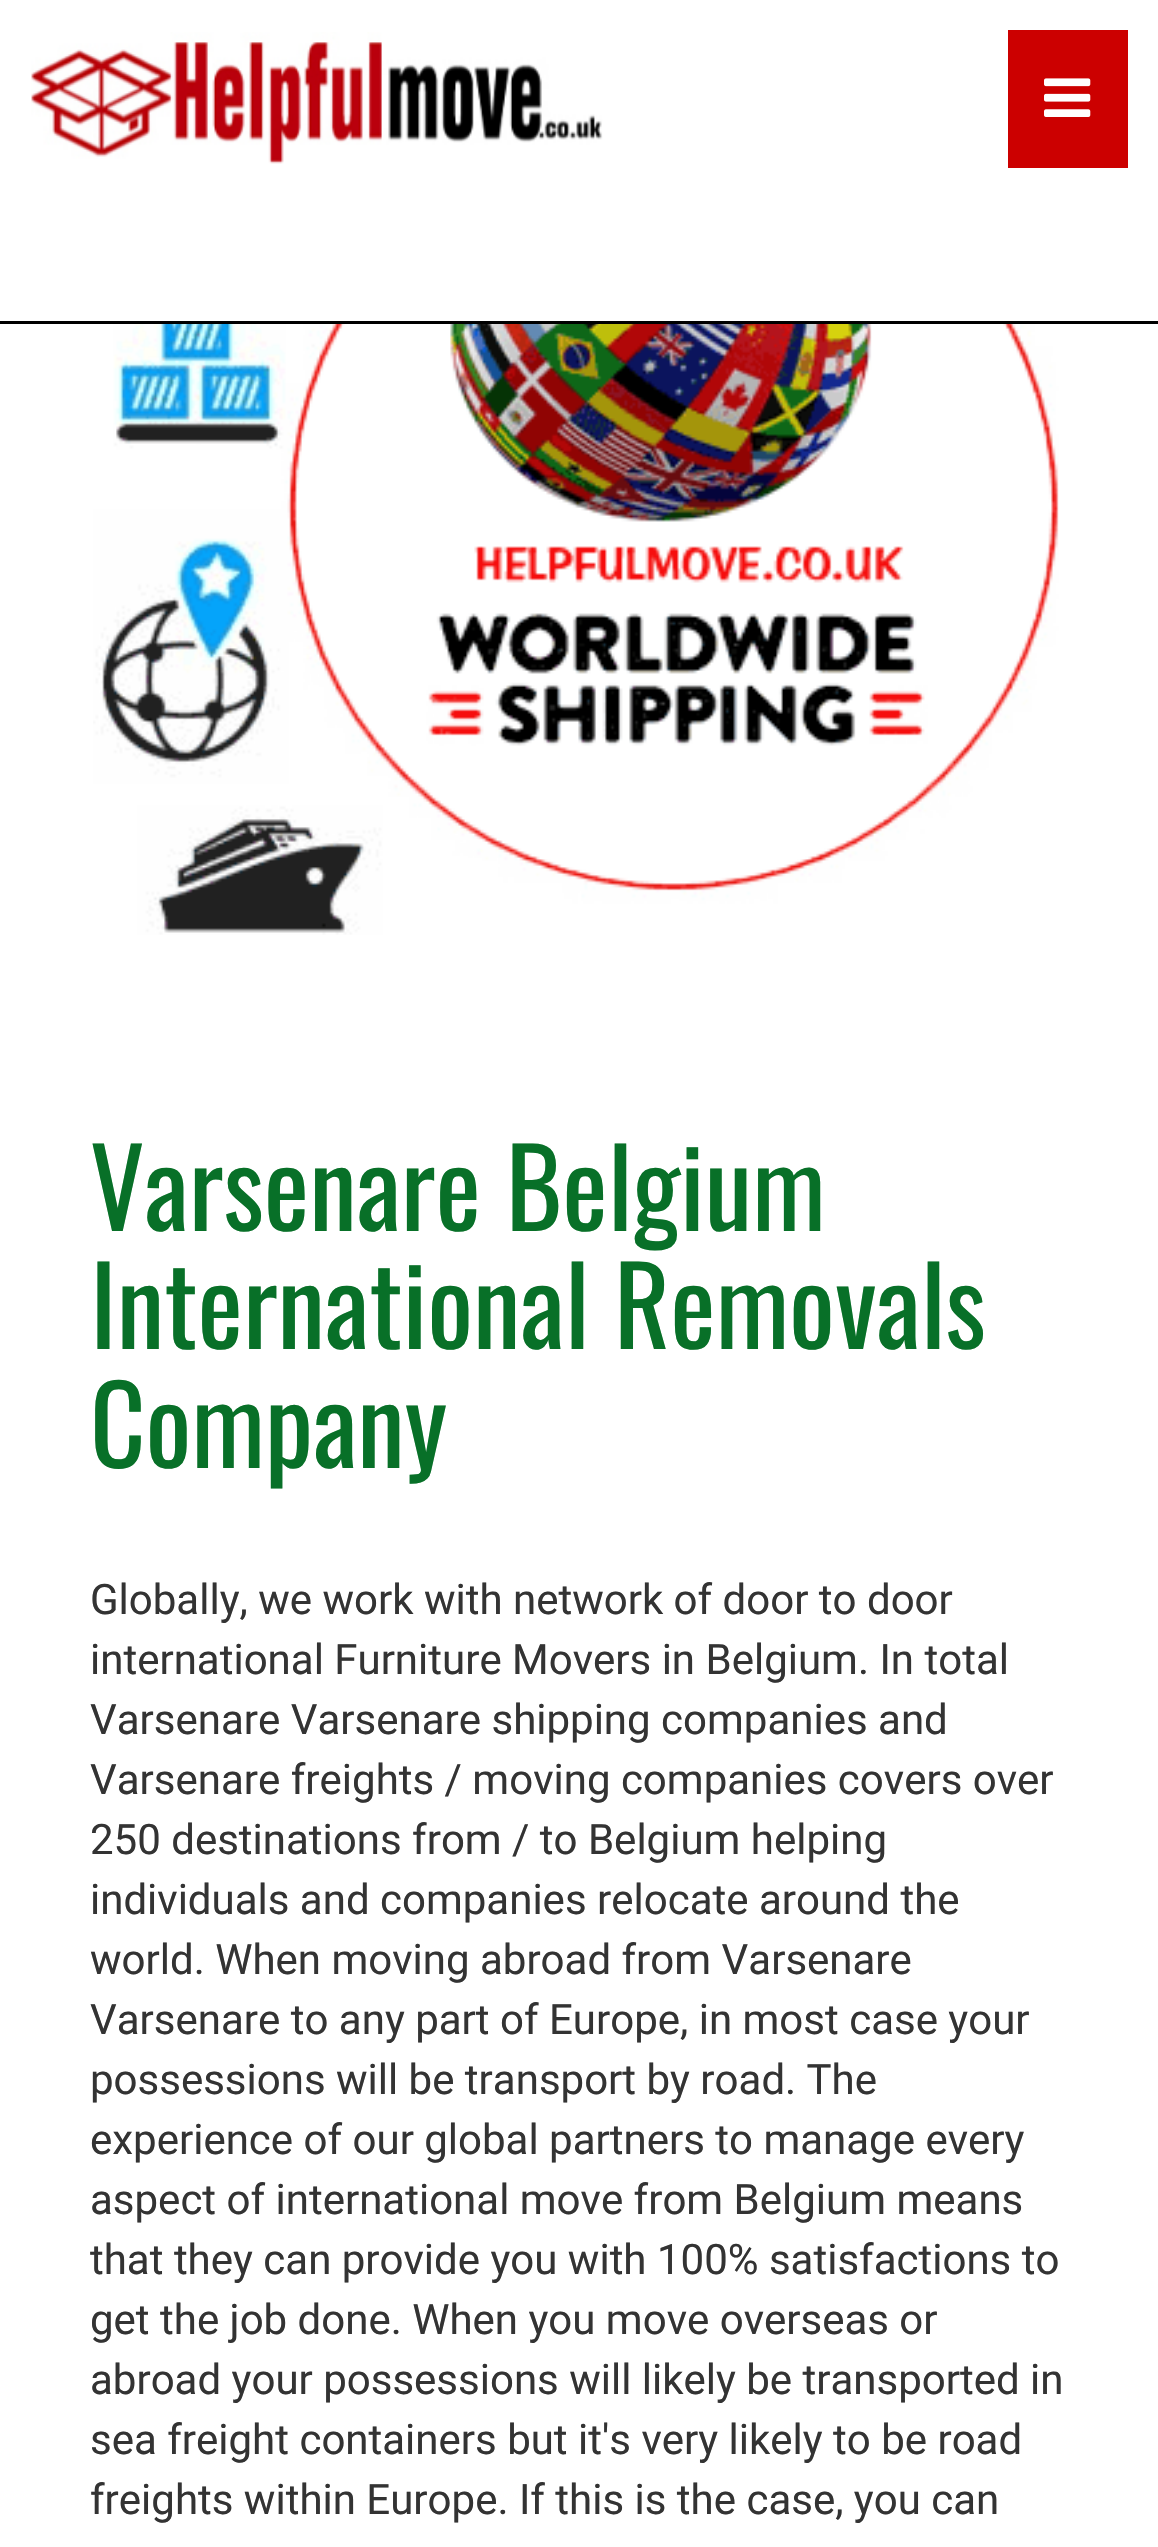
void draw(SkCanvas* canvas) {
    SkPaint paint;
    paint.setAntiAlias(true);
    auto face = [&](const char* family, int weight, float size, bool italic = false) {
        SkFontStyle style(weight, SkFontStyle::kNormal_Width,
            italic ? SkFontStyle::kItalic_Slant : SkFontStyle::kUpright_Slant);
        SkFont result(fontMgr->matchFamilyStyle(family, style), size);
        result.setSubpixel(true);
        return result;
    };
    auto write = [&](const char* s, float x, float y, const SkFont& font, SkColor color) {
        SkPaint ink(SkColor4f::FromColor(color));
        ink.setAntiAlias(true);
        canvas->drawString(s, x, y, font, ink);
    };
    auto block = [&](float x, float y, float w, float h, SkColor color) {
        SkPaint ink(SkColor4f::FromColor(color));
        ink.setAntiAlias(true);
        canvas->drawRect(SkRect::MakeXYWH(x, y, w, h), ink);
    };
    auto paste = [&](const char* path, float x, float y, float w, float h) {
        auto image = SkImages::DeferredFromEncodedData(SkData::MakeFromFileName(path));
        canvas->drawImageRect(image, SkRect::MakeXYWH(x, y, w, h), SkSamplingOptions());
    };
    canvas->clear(SK_ColorWHITE);
    block(0, 321, 1158, 3, SK_ColorBLACK);
    paste("pic1.png", 31, 32, 572, 132);
    block(1008, 30, 120, 138, SkColorSetRGB(204, 0, 0));
    paste("pic2.png", 1044, 78, 47, 39);
    paste("pic3.png", 93, 324, 966, 611);
    auto kFont1 = face("Oswald", 400, 108);
    write("Varsenare Belgium", 90, 1231, kFont1, SkColorSetRGB(8, 112, 40));
    write("International Removals", 90, 1349, kFont1, SkColorSetRGB(8, 112, 40));
    write("Company", 90, 1468, kFont1, SkColorSetRGB(8, 112, 40));
    auto kFont2 = face("Roboto", 400, 42);
    write("Globally, we work with network of door to door", 90, 1614, kFont2, SkColorSetRGB(51, 51, 51));
    write("international Furniture Movers in Belgium. In total", 90, 1674, kFont2, SkColorSetRGB(51, 51, 51));
    write("Varsenare Varsenare shipping companies and", 90, 1734, kFont2, SkColorSetRGB(51, 51, 51));
    write("Varsenare freights / moving companies covers over", 90, 1794, kFont2, SkColorSetRGB(51, 51, 51));
    write("250 destinations from / to Belgium helping", 90, 1854, kFont2, SkColorSetRGB(51, 51, 51));
    write("individuals and companies relocate around the", 90, 1914, kFont2, SkColorSetRGB(51, 51, 51));
    write("world. When moving abroad from Varsenare", 90, 1974, kFont2, SkColorSetRGB(51, 51, 51));
    write("Varsenare to any part of Europe, in most case your", 90, 2034, kFont2, SkColorSetRGB(51, 51, 51));
    write("possessions will be transport by road. The", 90, 2094, kFont2, SkColorSetRGB(51, 51, 51));
    write("experience of our global partners to manage every", 90, 2154, kFont2, SkColorSetRGB(51, 51, 51));
    write("aspect of international move from Belgium means", 90, 2214, kFont2, SkColorSetRGB(51, 51, 51));
    write("that they can provide you with 100% satisfactions to", 90, 2274, kFont2, SkColorSetRGB(51, 51, 51));
    write("get the job done. When you move overseas or", 90, 2334, kFont2, SkColorSetRGB(51, 51, 51));
    write("abroad your possessions will likely be transported in", 90, 2394, kFont2, SkColorSetRGB(51, 51, 51));
    write("sea freight containers but it's very likely to be road", 90, 2454, kFont2, SkColorSetRGB(51, 51, 51));
    write("freights within Europe. If this is the case, you can", 90, 2514, kFont2, SkColorSetRGB(51, 51, 51));
}
